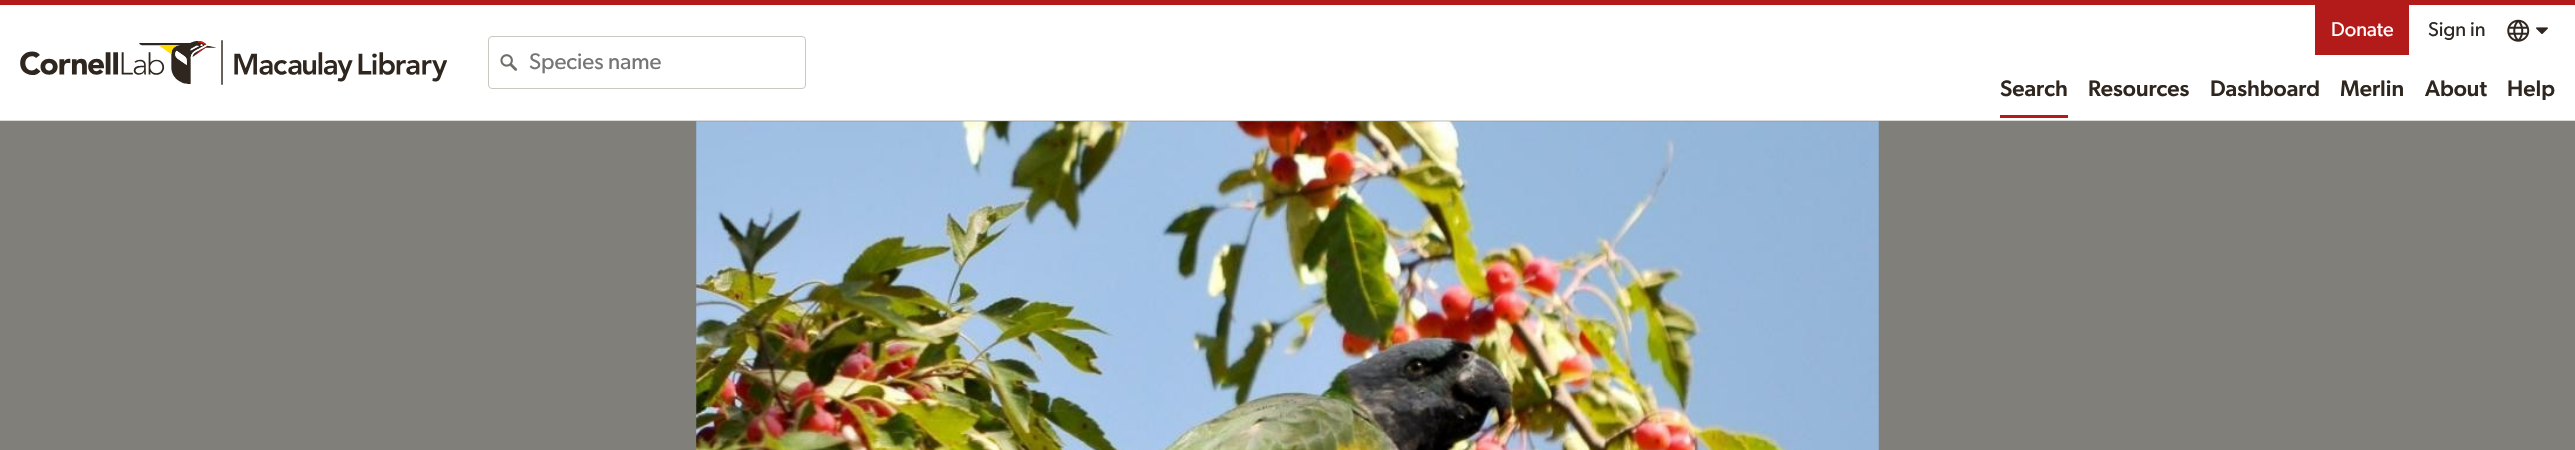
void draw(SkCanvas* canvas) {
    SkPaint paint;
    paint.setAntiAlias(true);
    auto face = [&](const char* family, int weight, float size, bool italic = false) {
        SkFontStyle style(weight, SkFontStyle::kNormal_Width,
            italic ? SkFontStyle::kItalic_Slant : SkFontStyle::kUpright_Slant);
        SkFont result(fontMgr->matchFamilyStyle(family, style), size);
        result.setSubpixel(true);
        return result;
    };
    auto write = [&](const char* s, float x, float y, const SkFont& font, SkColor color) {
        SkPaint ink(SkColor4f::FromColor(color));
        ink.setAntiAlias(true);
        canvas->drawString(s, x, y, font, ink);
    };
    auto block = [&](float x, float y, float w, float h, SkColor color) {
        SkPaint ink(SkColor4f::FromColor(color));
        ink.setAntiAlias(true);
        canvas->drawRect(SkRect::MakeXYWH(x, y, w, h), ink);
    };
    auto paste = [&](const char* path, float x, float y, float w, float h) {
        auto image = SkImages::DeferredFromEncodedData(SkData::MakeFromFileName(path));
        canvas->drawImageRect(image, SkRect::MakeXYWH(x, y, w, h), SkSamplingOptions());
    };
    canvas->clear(SK_ColorWHITE);
    block(0, 0, 2575, 5, SkColorSetRGB(179, 27, 27));
    block(0, 120, 2575, 1, SkColorSetRGB(219, 219, 217));
    paste("pic1.png", 20, 40, 427, 45);
    paint.setStyle(SkPaint::kStroke_Style);
    paint.setStrokeWidth(1);
    paint.setColor(SkColorSetRGB(200, 199, 192));
    canvas->drawRoundRect(SkRect::MakeXYWH(488.5f, 36.5f, 317, 52), 3.5f, 3.5f, paint);
    paste("pic2.png", 500, 54, 18, 17);
    auto kFont1 = face("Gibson", 400, 22.5f);
    write("Species name", 529, 69, kFont1, SkColorSetRGB(117, 117, 117));
    block(2315, 5, 94, 50, SkColorSetRGB(179, 27, 27));
    auto kFont2 = face("Gibson", 400, 20);
    write("Donate", 2331, 36, kFont2, SK_ColorWHITE);
    write("Sign in", 2428, 36, kFont2, SkColorSetRGB(46, 38, 31));
    paste("pic3.png", 2507, 19, 23, 23);
    paste("pic4.png", 2536, 27, 12, 7);
    block(2000, 115, 68, 3, SkColorSetRGB(179, 27, 27));
    auto kFont3 = face("Gibson", 500, 22.5f);
    write("Search", 2000, 96, kFont3, SkColorSetRGB(46, 38, 31));
    write("Resources", 2088, 96, kFont3, SkColorSetRGB(46, 38, 31));
    write("Dashboard", 2210, 96, kFont3, SkColorSetRGB(46, 38, 31));
    write("Merlin", 2340, 96, kFont3, SkColorSetRGB(46, 38, 31));
    write("About", 2425, 96, kFont3, SkColorSetRGB(46, 38, 31));
    write("Help", 2507, 96, kFont3, SkColorSetRGB(46, 38, 31));
    block(0, 121, 2575, 329, SkColorSetRGB(129, 127, 121));
    paste("pic5.png", 696, 121, 1183, 329);
}
